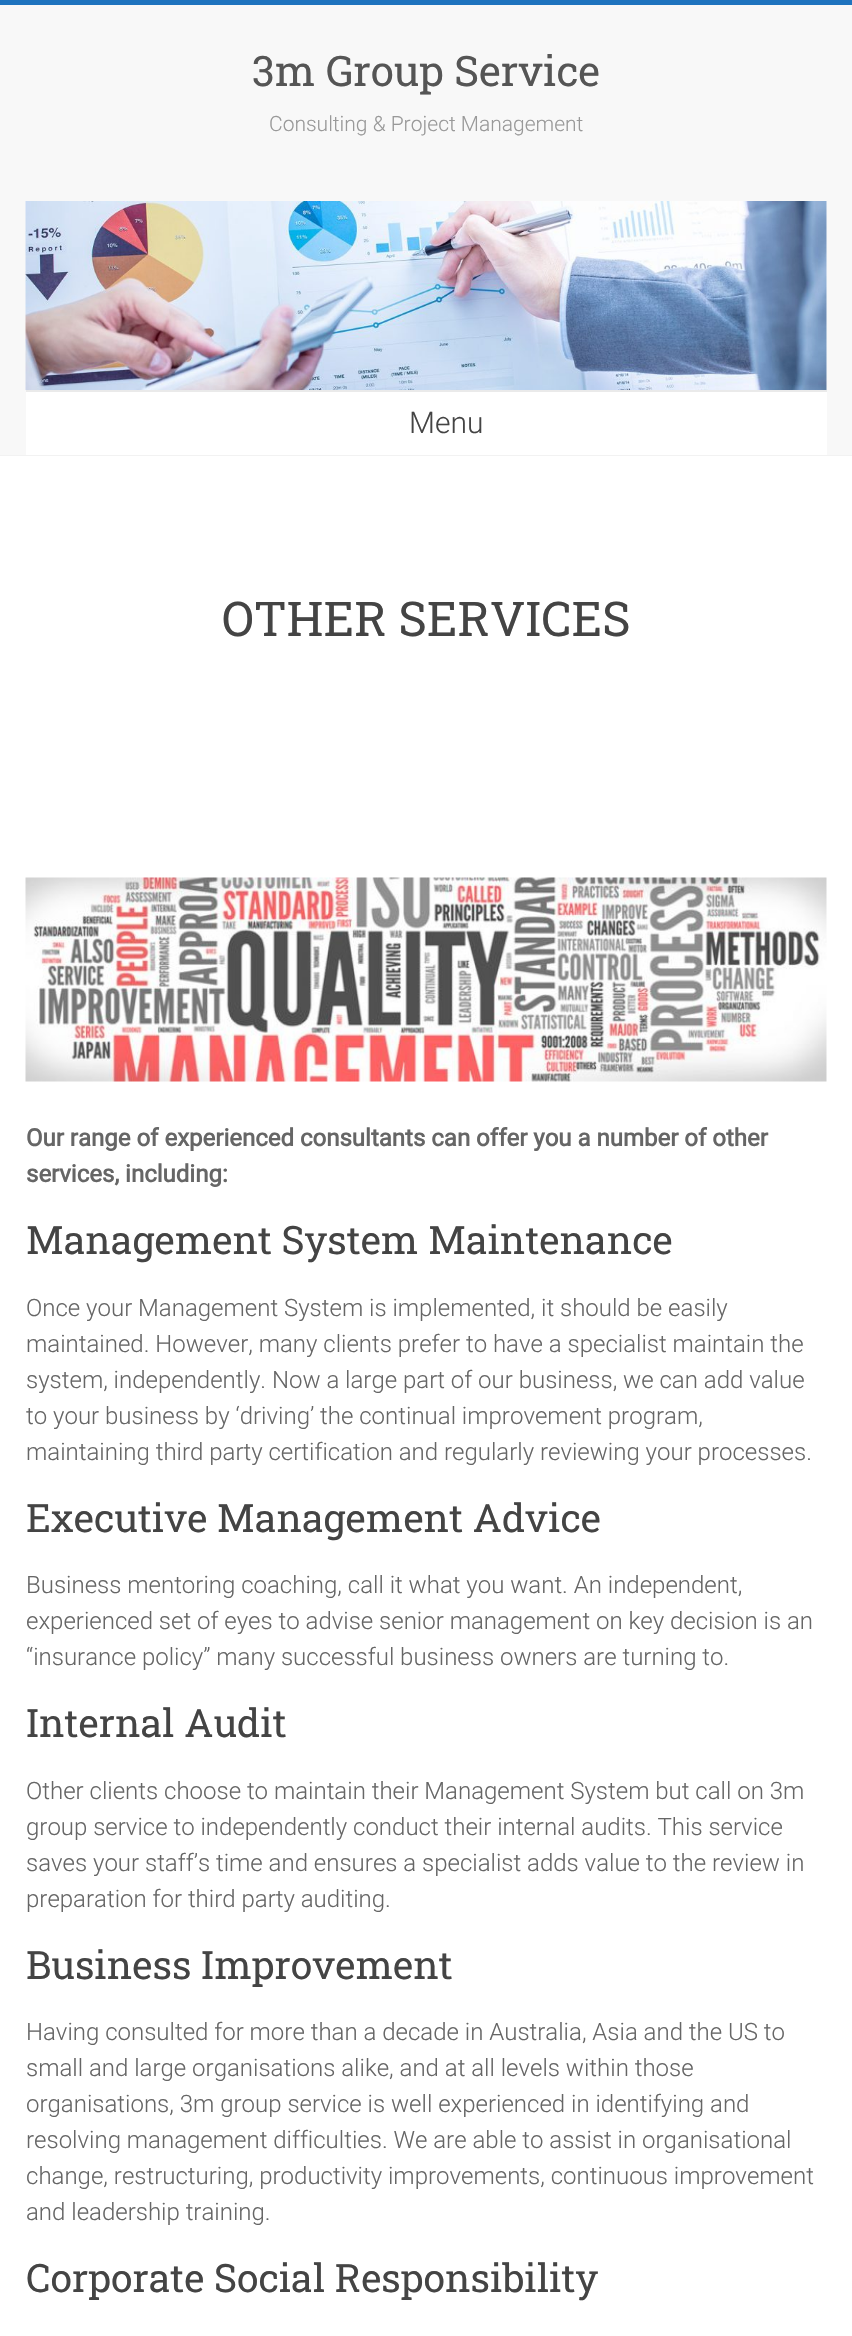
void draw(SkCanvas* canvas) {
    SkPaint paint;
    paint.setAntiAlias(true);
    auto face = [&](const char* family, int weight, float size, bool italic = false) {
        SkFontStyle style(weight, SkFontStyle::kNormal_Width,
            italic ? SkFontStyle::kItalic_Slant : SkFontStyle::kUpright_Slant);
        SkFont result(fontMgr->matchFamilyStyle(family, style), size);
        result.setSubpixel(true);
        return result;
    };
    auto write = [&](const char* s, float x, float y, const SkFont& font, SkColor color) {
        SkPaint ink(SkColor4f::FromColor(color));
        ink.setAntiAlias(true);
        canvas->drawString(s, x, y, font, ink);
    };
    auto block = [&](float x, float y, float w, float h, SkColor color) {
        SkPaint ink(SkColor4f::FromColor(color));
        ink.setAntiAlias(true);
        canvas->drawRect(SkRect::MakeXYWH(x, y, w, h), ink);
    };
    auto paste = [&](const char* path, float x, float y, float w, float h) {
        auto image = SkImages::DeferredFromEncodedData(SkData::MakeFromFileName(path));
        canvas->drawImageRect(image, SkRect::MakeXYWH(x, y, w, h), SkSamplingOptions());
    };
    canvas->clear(SK_ColorWHITE);
    block(0, 0, 852, 5, SkColorSetRGB(30, 115, 190));
    block(0, 5, 852, 450, SkColorSetRGB(248, 248, 248));
    block(0, 455, 852, 1, SkColorSetRGB(242, 242, 242));
    auto kFont1 = face("Roboto Slab", 400, 42);
    write("3m Group Service", 252, 86, kFont1, SkColorSetRGB(85, 85, 85));
    auto kFont2 = face("Roboto", 300, 21);
    write("Consulting & Project Management", 269, 131, kFont2, SkColorSetRGB(153, 153, 153));
    paste("pic1.png", 25, 201, 802, 189);
    block(26, 390, 801, 2, SkColorSetRGB(234, 234, 234));
    block(26, 392, 801, 63, SK_ColorWHITE);
    auto kFont3 = face("Roboto", 300, 30);
    write("Menu", 409, 433, kFont3, SkColorSetRGB(68, 68, 68));
    auto kFont4 = face("Roboto Slab", 400, 48);
    write("OTHER SERVICES", 222, 636, kFont4, SkColorSetRGB(68, 68, 68));
    paste("pic2.png", 25, 877, 802, 205);
    auto kFont5 = face("Roboto", 700, 24);
    write("Our range of experienced consultants can offer you a number of other", 26, 1146, kFont5, SkColorSetRGB(102, 102, 102));
    write("services, including:", 26, 1182, kFont5, SkColorSetRGB(102, 102, 102));
    auto kFont6 = face("Roboto Slab", 400, 39);
    write("Management System Maintenance", 26, 1254, kFont6, SkColorSetRGB(68, 68, 68));
    auto kFont7 = face("Roboto", 300, 24);
    write("Once your Management System is implemented, it should be easily", 26, 1316, kFont7, SkColorSetRGB(102, 102, 102));
    write("maintained. However, many clients prefer to have a specialist maintain the", 26, 1352, kFont7, SkColorSetRGB(102, 102, 102));
    write("system, independently. Now a large part of our business, we can add value", 26, 1388, kFont7, SkColorSetRGB(102, 102, 102));
    write("to your business by ‘driving’ the continual improvement program,", 26, 1424, kFont7, SkColorSetRGB(102, 102, 102));
    write("maintaining third party certification and regularly reviewing your processes.", 26, 1460, kFont7, SkColorSetRGB(102, 102, 102));
    write("Executive Management Advice", 26, 1532, kFont6, SkColorSetRGB(68, 68, 68));
    write("Business mentoring coaching, call it what you want. An independent,", 26, 1593, kFont7, SkColorSetRGB(102, 102, 102));
    write("experienced set of eyes to advise senior management on key decision is an", 26, 1629, kFont7, SkColorSetRGB(102, 102, 102));
    write("“insurance policy” many successful business owners are turning to.", 26, 1665, kFont7, SkColorSetRGB(102, 102, 102));
    write("Internal Audit", 26, 1737, kFont6, SkColorSetRGB(68, 68, 68));
    write("Other clients choose to maintain their Management System but call on 3m", 26, 1799, kFont7, SkColorSetRGB(102, 102, 102));
    write("group service to independently conduct their internal audits. This service", 26, 1835, kFont7, SkColorSetRGB(102, 102, 102));
    write("saves your staff’s time and ensures a specialist adds value to the review in", 26, 1871, kFont7, SkColorSetRGB(102, 102, 102));
    write("preparation for third party auditing.", 26, 1907, kFont7, SkColorSetRGB(102, 102, 102));
    write("Business Improvement", 26, 1979, kFont6, SkColorSetRGB(68, 68, 68));
    write("Having consulted for more than a decade in Australia, Asia and the US to", 26, 2040, kFont7, SkColorSetRGB(102, 102, 102));
    write("small and large organisations alike, and at all levels within those", 26, 2076, kFont7, SkColorSetRGB(102, 102, 102));
    write("organisations, 3m group service is well experienced in identifying and", 26, 2112, kFont7, SkColorSetRGB(102, 102, 102));
    write("resolving management difficulties. We are able to assist in organisational", 26, 2148, kFont7, SkColorSetRGB(102, 102, 102));
    write("change, restructuring, productivity improvements, continuous improvement", 26, 2184, kFont7, SkColorSetRGB(102, 102, 102));
    write("and leadership training.", 26, 2220, kFont7, SkColorSetRGB(102, 102, 102));
    write("Corporate Social Responsibility", 26, 2292, kFont6, SkColorSetRGB(68, 68, 68));
}
